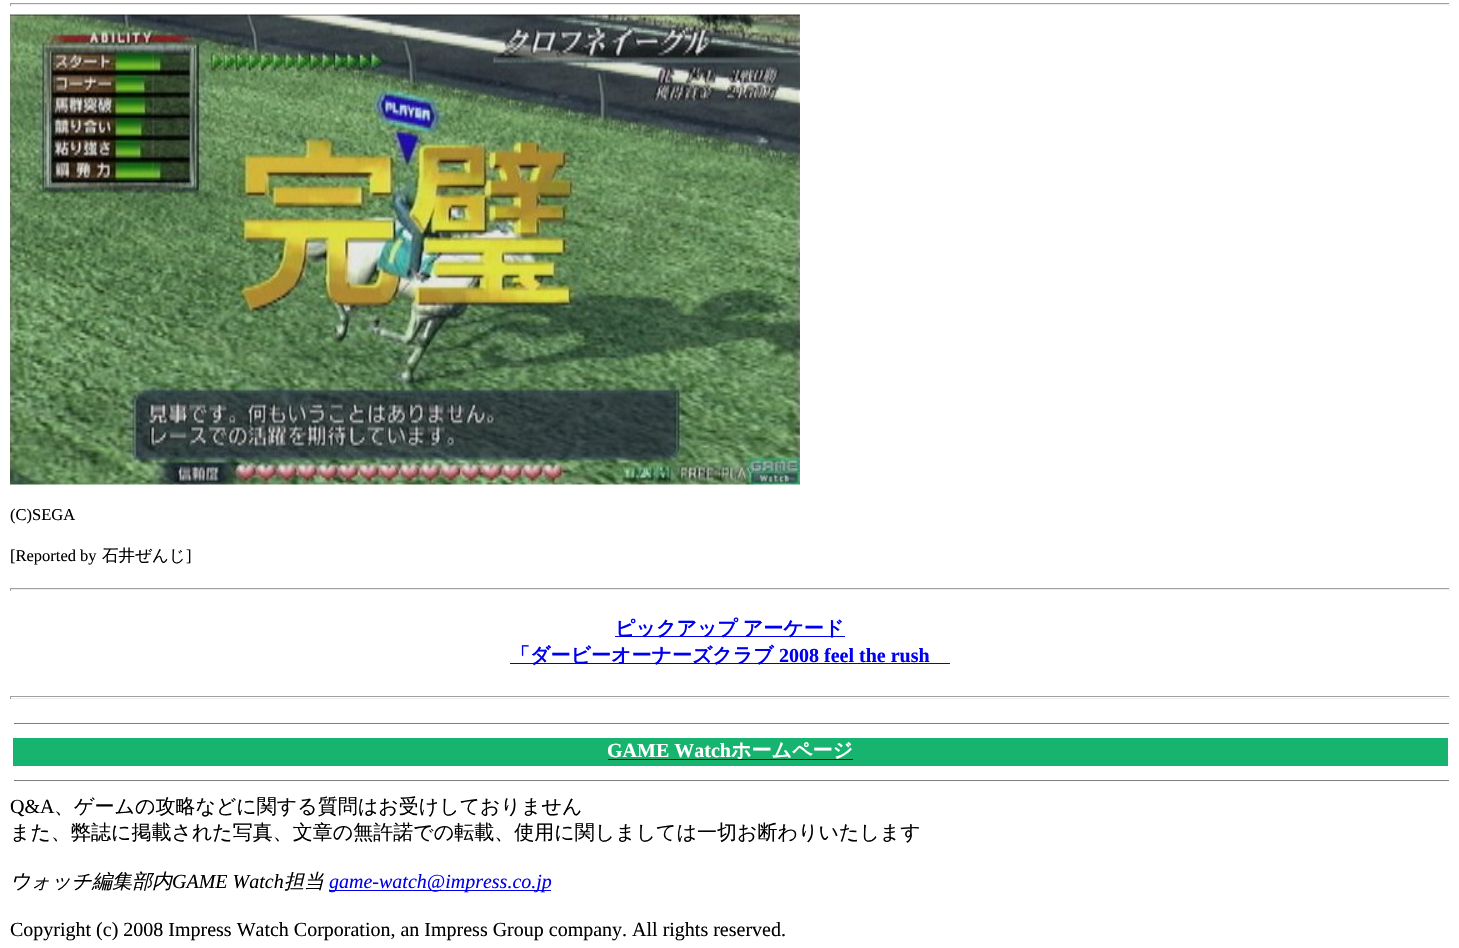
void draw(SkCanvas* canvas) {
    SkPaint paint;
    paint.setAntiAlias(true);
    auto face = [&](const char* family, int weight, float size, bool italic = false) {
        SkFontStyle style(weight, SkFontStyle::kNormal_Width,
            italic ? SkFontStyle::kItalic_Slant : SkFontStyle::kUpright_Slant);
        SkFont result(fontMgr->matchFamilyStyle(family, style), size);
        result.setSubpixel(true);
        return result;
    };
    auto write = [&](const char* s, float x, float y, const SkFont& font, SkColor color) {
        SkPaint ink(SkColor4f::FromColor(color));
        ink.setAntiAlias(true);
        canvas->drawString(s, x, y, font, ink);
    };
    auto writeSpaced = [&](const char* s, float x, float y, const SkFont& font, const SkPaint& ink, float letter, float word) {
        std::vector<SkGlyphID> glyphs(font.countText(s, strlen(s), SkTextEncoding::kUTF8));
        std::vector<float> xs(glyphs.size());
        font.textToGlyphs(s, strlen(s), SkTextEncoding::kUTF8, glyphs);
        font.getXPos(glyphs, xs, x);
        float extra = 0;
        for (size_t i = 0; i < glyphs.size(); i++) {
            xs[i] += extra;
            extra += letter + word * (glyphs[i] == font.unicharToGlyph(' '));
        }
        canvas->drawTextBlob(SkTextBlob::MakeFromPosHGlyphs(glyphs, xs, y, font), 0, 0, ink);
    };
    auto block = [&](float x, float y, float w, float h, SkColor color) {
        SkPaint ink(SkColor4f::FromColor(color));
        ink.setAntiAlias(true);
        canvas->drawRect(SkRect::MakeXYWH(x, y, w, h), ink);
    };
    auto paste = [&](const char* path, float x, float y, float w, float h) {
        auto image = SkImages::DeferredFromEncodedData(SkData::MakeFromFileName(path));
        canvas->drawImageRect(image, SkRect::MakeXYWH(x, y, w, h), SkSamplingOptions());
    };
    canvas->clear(SK_ColorWHITE);
    block(10, 3, 1440, 1, SkColorSetRGB(159, 159, 159));
    block(1449, 3, 1, 3, SkColorSetRGB(238, 238, 238));
    block(10, 4, 1440, 1, SkColorSetRGB(238, 238, 238));
    block(10, 3, 1, 3, SkColorSetRGB(159, 159, 159));
    paste("pic1.png", 10, 14, 790, 471);
    auto kFont1 = face("Liberation Serif", 400, 16.5f);
    write("(C)SEGA", 10, 520, kFont1, SK_ColorBLACK);
    write("[Reported by", 10, 561, kFont1, SK_ColorBLACK);
    auto kFont2 = face("WenQuanYi Zen Hei", 500, 16.5f);
    write("石井ぜんじ", 102, 561, kFont2, SK_ColorBLACK);
    write("]", 186, 561, kFont1, SK_ColorBLACK);
    block(10, 588, 1440, 1, SkColorSetRGB(159, 159, 159));
    block(1449, 588, 1, 3, SkColorSetRGB(238, 238, 238));
    block(10, 589, 1440, 1, SkColorSetRGB(238, 238, 238));
    block(10, 588, 1, 3, SkColorSetRGB(159, 159, 159));
    block(615, 636, 230, 1, SkColorSetRGB(0, 0, 238));
    auto kFont3 = face("WenQuanYi Zen Hei", 700, 20);
    paint.setColor(SkColorSetRGB(0, 0, 238));
    writeSpaced("ピックアップ アーケード", 615, 635, kFont3, paint, 0, -1);
    block(510, 663, 440, 1, SkColorSetRGB(0, 0, 238));
    write("「ダービーオーナーズクラブ", 510, 662, kFont3, SkColorSetRGB(0, 0, 238));
    auto kFont4 = face("Liberation Serif", 700, 20);
    write("2008 feel the rush", 779, 662, kFont4, SkColorSetRGB(0, 0, 238));
    block(10, 696, 1440, 1, SkColorSetRGB(159, 159, 159));
    block(1449, 696, 1, 3, SkColorSetRGB(238, 238, 238));
    block(10, 698, 1440, 1, SkColorSetRGB(238, 238, 238));
    block(10, 696, 1, 3, SkColorSetRGB(159, 159, 159));
    block(14, 723, 1435, 1, SkColorSetRGB(128, 128, 128));
    block(13, 738, 1435, 28, SkColorSetRGB(22, 180, 110));
    write("GAME Watch", 607, 757, kFont4, SK_ColorWHITE);
    block(608, 759, 245, 1, SkColorSetRGB(0, 0, 238));
    write("ホームページ", 731, 757, kFont3, SK_ColorWHITE);
    block(14, 780, 1435, 1, SkColorSetRGB(128, 128, 128));
    auto kFont5 = face("Liberation Serif", 400, 20);
    write("Q&A", 10, 813, kFont5, SK_ColorBLACK);
    auto kFont6 = face("WenQuanYi Zen Hei", 500, 20);
    write("、ゲームの攻略などに関する質問はお受けしておりません", 54, 813, kFont6, SK_ColorBLACK);
    write("また、弊誌に掲載された写真、文章の無許諾での転載、使用に関しましては一切お断わりいたします", 10, 839, kFont6, SK_ColorBLACK);
    auto kFont7 = face("WenQuanYi Zen Hei", 500, 20, true);
    write("ウォッチ編集部内", 10, 888, kFont7, SK_ColorBLACK);
    auto kFont8 = face("Liberation Serif", 400, 20, true);
    write("GAME Watch", 172, 888, kFont8, SK_ColorBLACK);
    write("担当", 284, 888, kFont7, SK_ColorBLACK);
    block(329, 890, 222, 1, SkColorSetRGB(0, 0, 238));
    write("game-watch@impress.co.jp", 329, 888, kFont8, SkColorSetRGB(0, 0, 238));
    write("Copyright (c) 2008 Impress Watch Corporation, an Impress Group company. All rights reserved.", 10, 936, kFont5, SK_ColorBLACK);
}
